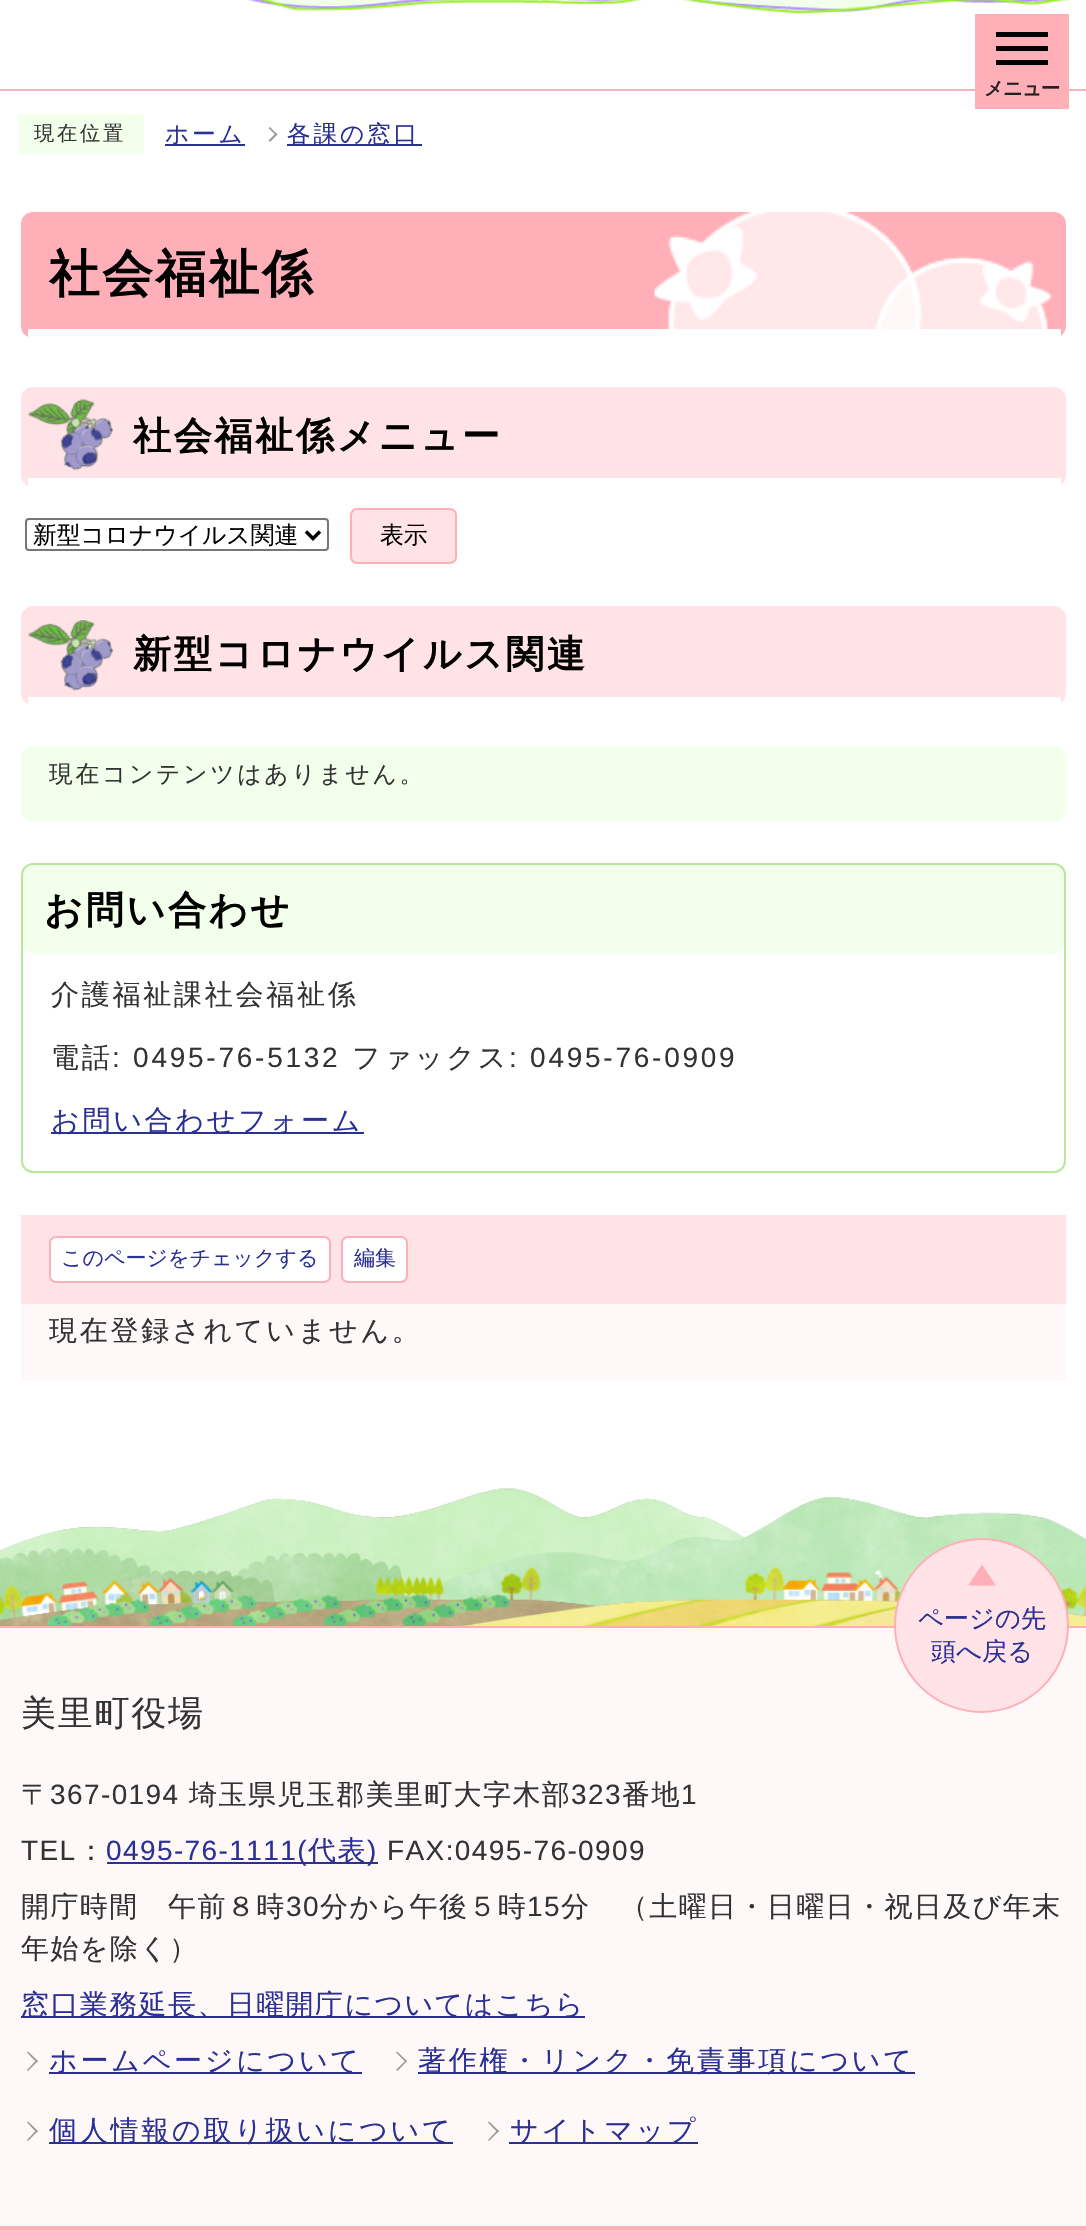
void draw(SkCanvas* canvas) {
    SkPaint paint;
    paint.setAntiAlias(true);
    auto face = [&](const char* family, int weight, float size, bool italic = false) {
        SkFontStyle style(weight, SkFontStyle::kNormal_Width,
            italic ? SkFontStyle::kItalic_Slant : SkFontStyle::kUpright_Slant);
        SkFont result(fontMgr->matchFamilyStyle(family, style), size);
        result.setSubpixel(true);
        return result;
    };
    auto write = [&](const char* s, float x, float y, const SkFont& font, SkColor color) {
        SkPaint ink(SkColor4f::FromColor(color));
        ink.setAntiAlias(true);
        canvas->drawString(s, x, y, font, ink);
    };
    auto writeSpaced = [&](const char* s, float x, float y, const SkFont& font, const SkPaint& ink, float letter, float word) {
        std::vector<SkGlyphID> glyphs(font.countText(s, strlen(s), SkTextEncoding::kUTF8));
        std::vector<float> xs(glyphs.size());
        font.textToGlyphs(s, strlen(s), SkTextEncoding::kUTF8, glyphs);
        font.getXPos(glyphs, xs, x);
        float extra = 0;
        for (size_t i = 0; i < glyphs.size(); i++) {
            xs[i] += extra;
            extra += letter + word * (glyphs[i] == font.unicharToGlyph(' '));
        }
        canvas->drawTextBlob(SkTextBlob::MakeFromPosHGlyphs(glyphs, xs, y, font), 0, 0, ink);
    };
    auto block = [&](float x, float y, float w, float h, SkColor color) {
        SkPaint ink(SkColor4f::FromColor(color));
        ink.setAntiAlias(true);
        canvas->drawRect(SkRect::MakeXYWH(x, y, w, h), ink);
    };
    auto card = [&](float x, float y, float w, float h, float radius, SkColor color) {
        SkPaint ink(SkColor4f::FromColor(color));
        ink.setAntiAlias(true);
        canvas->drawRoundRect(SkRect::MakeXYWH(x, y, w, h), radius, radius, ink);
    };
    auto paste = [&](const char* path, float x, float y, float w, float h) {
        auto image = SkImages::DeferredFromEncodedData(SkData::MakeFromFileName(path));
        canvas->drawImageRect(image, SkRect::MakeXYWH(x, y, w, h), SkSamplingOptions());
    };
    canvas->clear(SK_ColorWHITE);
    paste("pic1.png", 247, 0, 824, 14);
    block(0, 89, 1086, 2, SkColorSetRGB(242, 179, 185));
    block(975, 14, 94, 95, SkColorSetRGB(255, 175, 184));
    block(996, 32, 52, 5, SK_ColorBLACK);
    block(996, 46, 52, 5, SK_ColorBLACK);
    block(996, 60, 52, 5, SK_ColorBLACK);
    auto kFont1 = face("WenQuanYi Zen Hei", 700, 19.5f);
    paint.setColor(SkColorSetRGB(34, 34, 34));
    writeSpaced("メニュー", 984, 95, kFont1, paint, -1, 0);
    card(18, 114, 126, 40, 4, SkColorSetRGB(241, 255, 235));
    auto kFont2 = face("WenQuanYi Zen Hei", 500, 20.25f);
    paint.setColor(SkColorSetRGB(51, 51, 51));
    writeSpaced("現在位置", 34, 140, kFont2, paint, 2.75f, 0);
    block(165, 144, 80, 2, SkColorSetRGB(43, 48, 149));
    auto kFont3 = face("WenQuanYi Zen Hei", 500, 23.75f);
    paint.setColor(SkColorSetRGB(43, 48, 149));
    writeSpaced("ホーム", 165, 142, kFont3, paint, 2.75f, 0);
    paint.setColor(SkColorSetRGB(153, 153, 153));
    canvas->drawPath(SkPathBuilder().moveTo(268.5f, 128).lineTo(270, 127).lineTo(277.5f, 134.5f).lineTo(276, 135.5f).close().detach(), paint);
    canvas->drawPath(SkPathBuilder().moveTo(268.5f, 140.5f).lineTo(276, 133).lineTo(277.5f, 134.5f).lineTo(270, 142).close().detach(), paint);
    block(287, 144, 135, 2, SkColorSetRGB(43, 48, 149));
    paint.setColor(SkColorSetRGB(43, 48, 149));
    writeSpaced("各課の窓口", 287, 142, kFont3, paint, 2.75f, 0);
    card(21, 212, 1045, 126, 12, SkColorSetRGB(254, 175, 184));
    paste("pic2.png", 654, 212, 399, 117);
    block(28, 329, 1033, 9, SK_ColorWHITE);
    auto kFont4 = face("WenQuanYi Zen Hei", 700, 50.5f);
    paint.setColor(SK_ColorBLACK);
    writeSpaced("社会福祉係", 49, 291, kFont4, paint, 2.75f, 0);
    card(21, 387, 1045, 100, 12, SkColorSetRGB(255, 227, 230));
    block(28, 478, 1033, 9, SK_ColorWHITE);
    paste("pic3.png", 28, 399, 86, 72);
    auto kFont5 = face("WenQuanYi Zen Hei", 700, 38);
    writeSpaced("社会福祉係メニュー", 133, 449, kFont5, paint, 2.75f, 0);
    paint.setStyle(SkPaint::kStroke_Style);
    paint.setStrokeWidth(2);
    paint.setColor(SkColorSetRGB(118, 118, 118));
    canvas->drawRoundRect(SkRect::MakeXYWH(26, 519, 302, 31), 3, 3, paint);
    paint.setStrokeWidth(3.5f);
    paint.setColor(SK_ColorBLACK);
    canvas->drawPath(SkPathBuilder().moveTo(306, 531.5f).lineTo(313, 538.5f).lineTo(320, 531.5f).detach(), paint);
    write("新型コロナウイルス関連", 33, 543, kFont3, SK_ColorBLACK);
    paint.setStyle(SkPaint::kFill_Style);
    paint.setColor(SkColorSetRGB(255, 227, 230));
    canvas->drawRoundRect(SkRect::MakeXYWH(351, 509, 105, 54), 6, 6, paint);
    paint.setStyle(SkPaint::kStroke_Style);
    paint.setStrokeWidth(2);
    paint.setColor(SkColorSetRGB(254, 175, 184));
    canvas->drawRoundRect(SkRect::MakeXYWH(351, 509, 105, 54), 6, 6, paint);
    write("表示", 380, 543, kFont3, SK_ColorBLACK);
    card(21, 606, 1045, 99, 12, SkColorSetRGB(255, 227, 230));
    block(28, 697, 1033, 8, SK_ColorWHITE);
    paste("pic4.png", 28, 620, 86, 71);
    paint.setStyle(SkPaint::kFill_Style);
    paint.setColor(SK_ColorBLACK);
    writeSpaced("新型コロナウイルス関連", 133, 667, kFont5, paint, 2.75f, 0);
    card(21, 747, 1045, 74, 12, SkColorSetRGB(241, 255, 235));
    paint.setColor(SkColorSetRGB(51, 51, 51));
    writeSpaced("現在コンテンツはありません。", 49, 782, kFont3, paint, 2.75f, 0);
    paint.setStyle(SkPaint::kStroke_Style);
    paint.setColor(SkColorSetRGB(181, 232, 152));
    canvas->drawRoundRect(SkRect::MakeXYWH(22, 864, 1043, 308), 11, 11, paint);
    card(23, 865, 1041, 89, 12, SkColorSetRGB(241, 255, 235));
    paint.setStyle(SkPaint::kFill_Style);
    paint.setColor(SK_ColorBLACK);
    writeSpaced("お問い合わせ", 44, 923, kFont5, paint, 2.75f, 0);
    auto kFont6 = face("WenQuanYi Zen Hei", 500, 28);
    paint.setColor(SkColorSetRGB(51, 51, 51));
    writeSpaced("介護福祉課社会福祉係", 51, 1004, kFont6, paint, 2.75f, 0);
    writeSpaced("電話", 51, 1067, kFont6, paint, 2.75f, 0);
    auto kFont7 = face("Liberation Sans", 400, 28);
    writeSpaced(": 0495-76-5132", 112, 1067, kFont7, paint, 2.75f, 0);
    writeSpaced("ファックス", 352, 1067, kFont6, paint, 2.75f, 0);
    writeSpaced(": 0495-76-0909", 509, 1067, kFont7, paint, 2.75f, 0);
    block(51, 1132, 313, 2, SkColorSetRGB(43, 48, 149));
    paint.setColor(SkColorSetRGB(43, 48, 149));
    writeSpaced("お問い合わせフォーム", 51, 1130, kFont6, paint, 2.75f, 0);
    block(21, 1215, 1045, 89, SkColorSetRGB(255, 227, 230));
    paint.setColor(SK_ColorWHITE);
    canvas->drawRoundRect(SkRect::MakeXYWH(50, 1237, 280, 45), 6, 6, paint);
    paint.setStyle(SkPaint::kStroke_Style);
    paint.setColor(SkColorSetRGB(254, 175, 184));
    canvas->drawRoundRect(SkRect::MakeXYWH(50, 1237, 280, 45), 6, 6, paint);
    auto kFont8 = face("WenQuanYi Zen Hei", 500, 21);
    write("このページをチェックする", 61, 1265, kFont8, SkColorSetRGB(43, 48, 149));
    paint.setStyle(SkPaint::kFill_Style);
    paint.setColor(SK_ColorWHITE);
    canvas->drawRoundRect(SkRect::MakeXYWH(342, 1237, 65, 45), 6, 6, paint);
    paint.setStyle(SkPaint::kStroke_Style);
    paint.setColor(SkColorSetRGB(254, 175, 184));
    canvas->drawRoundRect(SkRect::MakeXYWH(342, 1237, 65, 45), 6, 6, paint);
    write("編集", 354, 1265, kFont8, SkColorSetRGB(43, 48, 149));
    block(21, 1304, 1045, 77, SkColorSetRGB(255, 248, 249));
    paint.setStyle(SkPaint::kFill_Style);
    paint.setColor(SkColorSetRGB(51, 51, 51));
    writeSpaced("現在登録されていません。", 49, 1340, kFont6, paint, 2.75f, 0);
    block(0, 1628, 1086, 598, SkColorSetRGB(255, 248, 249));
    block(0, 1626, 1086, 2, SkColorSetRGB(255, 175, 184));
    paste("pic5.png", 0, 1488, 1086, 138);
    paint.setColor(SkColorSetRGB(255, 227, 230));
    canvas->drawCircle(981.5f, 1625.5f, 86.5f, paint);
    paint.setStyle(SkPaint::kStroke_Style);
    paint.setColor(SkColorSetRGB(255, 175, 184));
    canvas->drawCircle(981.5f, 1625.5f, 86.5f, paint);
    paint.setStyle(SkPaint::kFill_Style);
    canvas->drawPath(SkPathBuilder().moveTo(996, 1585.5f).lineTo(968, 1585.5f).lineTo(982, 1564.5f).close().detach(), paint);
    auto kFont9 = face("WenQuanYi Zen Hei", 500, 25.25f);
    write("ページの先", 918, 1627, kFont9, SkColorSetRGB(43, 48, 149));
    write("頭へ戻る", 931, 1660, kFont9, SkColorSetRGB(43, 48, 149));
    auto kFont10 = face("WenQuanYi Zen Hei", 500, 35);
    paint.setColor(SkColorSetRGB(51, 51, 51));
    writeSpaced("美里町役場", 21, 1725, kFont10, paint, 1.75f, 0);
    writeSpaced("〒", 21, 1804, kFont6, paint, 1.4f, 0);
    writeSpaced("367-0194", 50, 1804, kFont7, paint, 1.4f, 0);
    writeSpaced("埼玉県児玉郡美里町大字木部", 189, 1804, kFont6, paint, 1.4f, 0);
    writeSpaced("323", 571, 1804, kFont7, paint, 1.4f, 0);
    writeSpaced("番地", 622, 1804, kFont6, paint, 1.4f, 0);
    writeSpaced("1", 681, 1804, kFont7, paint, 1.4f, 0);
    writeSpaced("TEL", 21, 1860, kFont7, paint, 1.4f, 0);
    writeSpaced("：", 77, 1860, kFont6, paint, 1.4f, 0);
    block(107, 1862, 271, 2, SkColorSetRGB(43, 48, 149));
    paint.setColor(SkColorSetRGB(43, 48, 149));
    writeSpaced("0495-76-1111(", 106, 1860, kFont7, paint, 1.4f, 0);
    writeSpaced("代表", 308, 1860, kFont6, paint, 1.4f, 0);
    writeSpaced(")", 367, 1860, kFont7, paint, 1.4f, 0);
    paint.setColor(SkColorSetRGB(51, 51, 51));
    writeSpaced("FAX:0495-76-0909", 387, 1860, kFont7, paint, 1.4f, 0);
    writeSpaced("開庁時間　午前８時", 21, 1916, kFont6, paint, 1.4f, 0);
    writeSpaced("30", 286, 1916, kFont7, paint, 1.4f, 0);
    writeSpaced("分から午後５時", 320, 1916, kFont6, paint, 1.4f, 0);
    writeSpaced("15", 527, 1916, kFont7, paint, 1.4f, 0);
    writeSpaced("分　（土曜日・日曜日・祝日及び年末", 561, 1916, kFont6, paint, 1.4f, 0);
    writeSpaced("年始を除く）", 21, 1958, kFont6, paint, 1.4f, 0);
    block(21, 2016, 564, 2, SkColorSetRGB(43, 48, 149));
    paint.setColor(SkColorSetRGB(43, 48, 149));
    writeSpaced("窓口業務延長、日曜開庁についてはこちら", 21, 2014, kFont6, paint, 1.4f, 0);
    paint.setColor(SkColorSetRGB(153, 153, 153));
    canvas->drawPath(SkPathBuilder().moveTo(27, 2052.5f).lineTo(28, 2051.5f).lineTo(38, 2061).lineTo(36.5f, 2062.5f).close().detach(), paint);
    canvas->drawPath(SkPathBuilder().moveTo(27, 2070).lineTo(36.5f, 2060).lineTo(38, 2061).lineTo(28, 2071).close().detach(), paint);
    block(49, 2072, 313, 2, SkColorSetRGB(43, 48, 149));
    paint.setColor(SkColorSetRGB(43, 48, 149));
    writeSpaced("ホームページについて", 49, 2070, kFont6, paint, 2.75f, 0);
    paint.setColor(SkColorSetRGB(153, 153, 153));
    canvas->drawPath(SkPathBuilder().moveTo(396, 2052.5f).lineTo(397, 2051.5f).lineTo(407, 2061).lineTo(406, 2062.5f).close().detach(), paint);
    canvas->drawPath(SkPathBuilder().moveTo(396, 2070).lineTo(406, 2060).lineTo(407, 2061).lineTo(397.5f, 2071).close().detach(), paint);
    block(418, 2072, 497, 2, SkColorSetRGB(43, 48, 149));
    paint.setColor(SkColorSetRGB(43, 48, 149));
    writeSpaced("著作権・リンク・免責事項について", 418, 2070, kFont6, paint, 2.75f, 0);
    paint.setColor(SkColorSetRGB(153, 153, 153));
    canvas->drawPath(SkPathBuilder().moveTo(27, 2122.5f).lineTo(28, 2121.5f).lineTo(38, 2131).lineTo(36.5f, 2132.5f).close().detach(), paint);
    canvas->drawPath(SkPathBuilder().moveTo(27, 2140).lineTo(36.5f, 2130).lineTo(38, 2131).lineTo(28, 2141).close().detach(), paint);
    block(49, 2142, 404, 2, SkColorSetRGB(43, 48, 149));
    paint.setColor(SkColorSetRGB(43, 48, 149));
    writeSpaced("個人情報の取り扱いについて", 49, 2140, kFont6, paint, 2.75f, 0);
    paint.setColor(SkColorSetRGB(153, 153, 153));
    canvas->drawPath(SkPathBuilder().moveTo(488, 2122.5f).lineTo(489, 2121.5f).lineTo(499, 2131).lineTo(497.5f, 2132.5f).close().detach(), paint);
    canvas->drawPath(SkPathBuilder().moveTo(488, 2140).lineTo(497.5f, 2130).lineTo(499, 2131).lineTo(489, 2141).close().detach(), paint);
    block(509, 2142, 189, 2, SkColorSetRGB(43, 48, 149));
    paint.setColor(SkColorSetRGB(43, 48, 149));
    writeSpaced("サイトマップ", 510, 2140, kFont6, paint, 2.75f, 0);
    block(0, 2226, 1086, 4, SkColorSetRGB(255, 175, 184));
}
